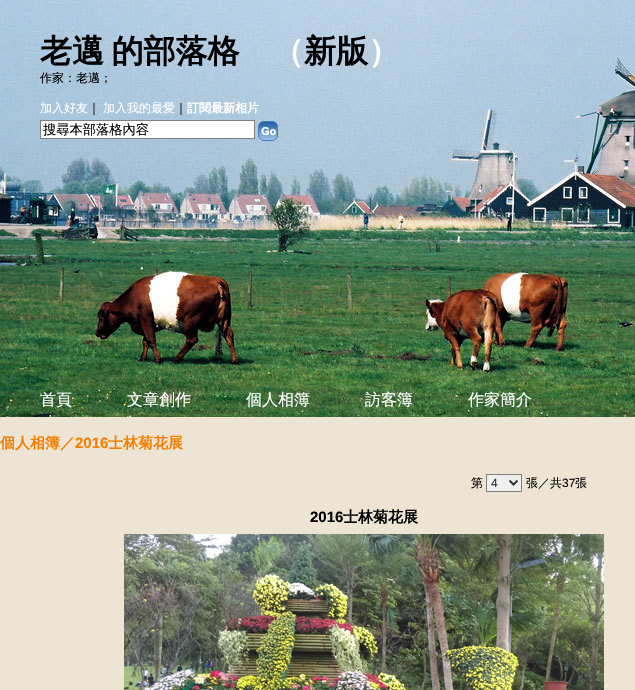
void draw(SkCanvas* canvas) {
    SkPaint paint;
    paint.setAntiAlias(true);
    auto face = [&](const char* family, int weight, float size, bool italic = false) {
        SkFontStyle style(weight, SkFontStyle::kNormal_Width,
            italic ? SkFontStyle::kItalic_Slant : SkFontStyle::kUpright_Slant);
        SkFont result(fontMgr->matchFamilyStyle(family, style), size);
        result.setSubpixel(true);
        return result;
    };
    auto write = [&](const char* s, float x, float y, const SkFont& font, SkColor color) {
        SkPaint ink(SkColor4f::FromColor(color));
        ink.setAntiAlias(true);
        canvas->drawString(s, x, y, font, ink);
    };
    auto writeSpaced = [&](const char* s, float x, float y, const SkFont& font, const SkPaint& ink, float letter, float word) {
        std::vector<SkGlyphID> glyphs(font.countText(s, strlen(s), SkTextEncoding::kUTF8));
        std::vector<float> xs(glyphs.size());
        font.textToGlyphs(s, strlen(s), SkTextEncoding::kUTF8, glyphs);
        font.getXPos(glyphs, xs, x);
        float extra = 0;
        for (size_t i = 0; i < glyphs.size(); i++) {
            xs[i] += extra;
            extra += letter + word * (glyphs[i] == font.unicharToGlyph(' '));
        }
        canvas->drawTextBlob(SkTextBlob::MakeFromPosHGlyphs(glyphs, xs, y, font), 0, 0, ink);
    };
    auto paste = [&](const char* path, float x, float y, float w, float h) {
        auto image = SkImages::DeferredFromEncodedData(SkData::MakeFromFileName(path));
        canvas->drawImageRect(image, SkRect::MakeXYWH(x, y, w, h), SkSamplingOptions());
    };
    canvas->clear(SkColorSetRGB(238, 228, 212));
    paste("pic1.png", 0, 0, 635, 417);
    auto kFont1 = face("WenQuanYi Zen Hei", 700, 32);
    paint.setColor(SK_ColorBLACK);
    writeSpaced("老邁 的部落格", 40, 62, kFont1, paint, 0, -2);
    write("（", 272, 62, kFont1, SK_ColorWHITE);
    write("新版", 304, 62, kFont1, SK_ColorBLACK);
    write("）", 368, 62, kFont1, SK_ColorWHITE);
    auto kFont2 = face("WenQuanYi Zen Hei", 500, 12);
    write("作家：老邁；", 40, 82, kFont2, SK_ColorBLACK);
    write("加入好友", 40, 112, kFont2, SK_ColorWHITE);
    write("｜", 88, 112, kFont2, SK_ColorBLACK);
    write("加入我的最愛", 103, 112, kFont2, SK_ColorWHITE);
    write("｜", 175, 112, kFont2, SK_ColorBLACK);
    auto kFont3 = face("WenQuanYi Zen Hei", 700, 12);
    write("訂閱最新相片", 187, 112, kFont3, SK_ColorWHITE);
    paint.setColor(SK_ColorWHITE);
    canvas->drawRect(SkRect::MakeXYWH(40.5f, 120.5f, 214, 18), paint);
    paint.setStyle(SkPaint::kStroke_Style);
    paint.setStrokeWidth(1);
    paint.setColor(SkColorSetRGB(128, 128, 128));
    canvas->drawRect(SkRect::MakeXYWH(40.5f, 120.5f, 214, 18), paint);
    auto kFont4 = face("WenQuanYi Zen Hei", 500, 13.25f);
    write("搜尋本部落格內容", 43, 134, kFont4, SK_ColorBLACK);
    paste("pic2.png", 258, 121, 20, 20);
    auto kFont5 = face("WenQuanYi Zen Hei", 500, 16);
    write("首頁", 40, 405, kFont5, SK_ColorWHITE);
    write("文章創作", 127, 405, kFont5, SK_ColorWHITE);
    write("個人相簿", 246, 405, kFont5, SK_ColorWHITE);
    write("訪客簿", 365, 405, kFont5, SK_ColorWHITE);
    write("作家簡介", 468, 405, kFont5, SK_ColorWHITE);
    auto kFont6 = face("WenQuanYi Zen Hei", 700, 15);
    write("個人相簿／", 0, 448, kFont6, SkColorSetRGB(244, 126, 0));
    auto kFont7 = face("Liberation Sans", 700, 15);
    write("2016", 75, 448, kFont7, SkColorSetRGB(244, 126, 0));
    write("士林菊花展", 108, 448, kFont6, SkColorSetRGB(244, 126, 0));
    write("第", 471, 487, kFont2, SK_ColorBLACK);
    paint.setStyle(SkPaint::kFill_Style);
    paint.setColor(SkColorSetRGB(239, 239, 239));
    canvas->drawRect(SkRect::MakeXYWH(486.5f, 474.5f, 35, 17), paint);
    paint.setStyle(SkPaint::kStroke_Style);
    paint.setColor(SkColorSetRGB(128, 128, 128));
    canvas->drawRect(SkRect::MakeXYWH(486.5f, 474.5f, 35, 17), paint);
    paint.setStrokeWidth(2);
    paint.setColor(SkColorSetRGB(51, 51, 51));
    canvas->drawPath(SkPathBuilder().moveTo(509.5f, 480.5f).lineTo(513.5f, 484.5f).lineTo(517.5f, 480.5f).detach(), paint);
    auto kFont8 = face("Liberation Sans", 400, 12);
    write("4", 491, 487, kFont8, SkColorSetRGB(51, 51, 51));
    write("張／共", 526, 487, kFont2, SK_ColorBLACK);
    write("37", 562, 487, kFont8, SK_ColorBLACK);
    write("張", 575, 487, kFont2, SK_ColorBLACK);
    write("2016", 310, 522, kFont7, SK_ColorBLACK);
    write("士林菊花展", 343, 522, kFont6, SK_ColorBLACK);
    paste("pic3.png", 124, 534, 480, 156);
}
